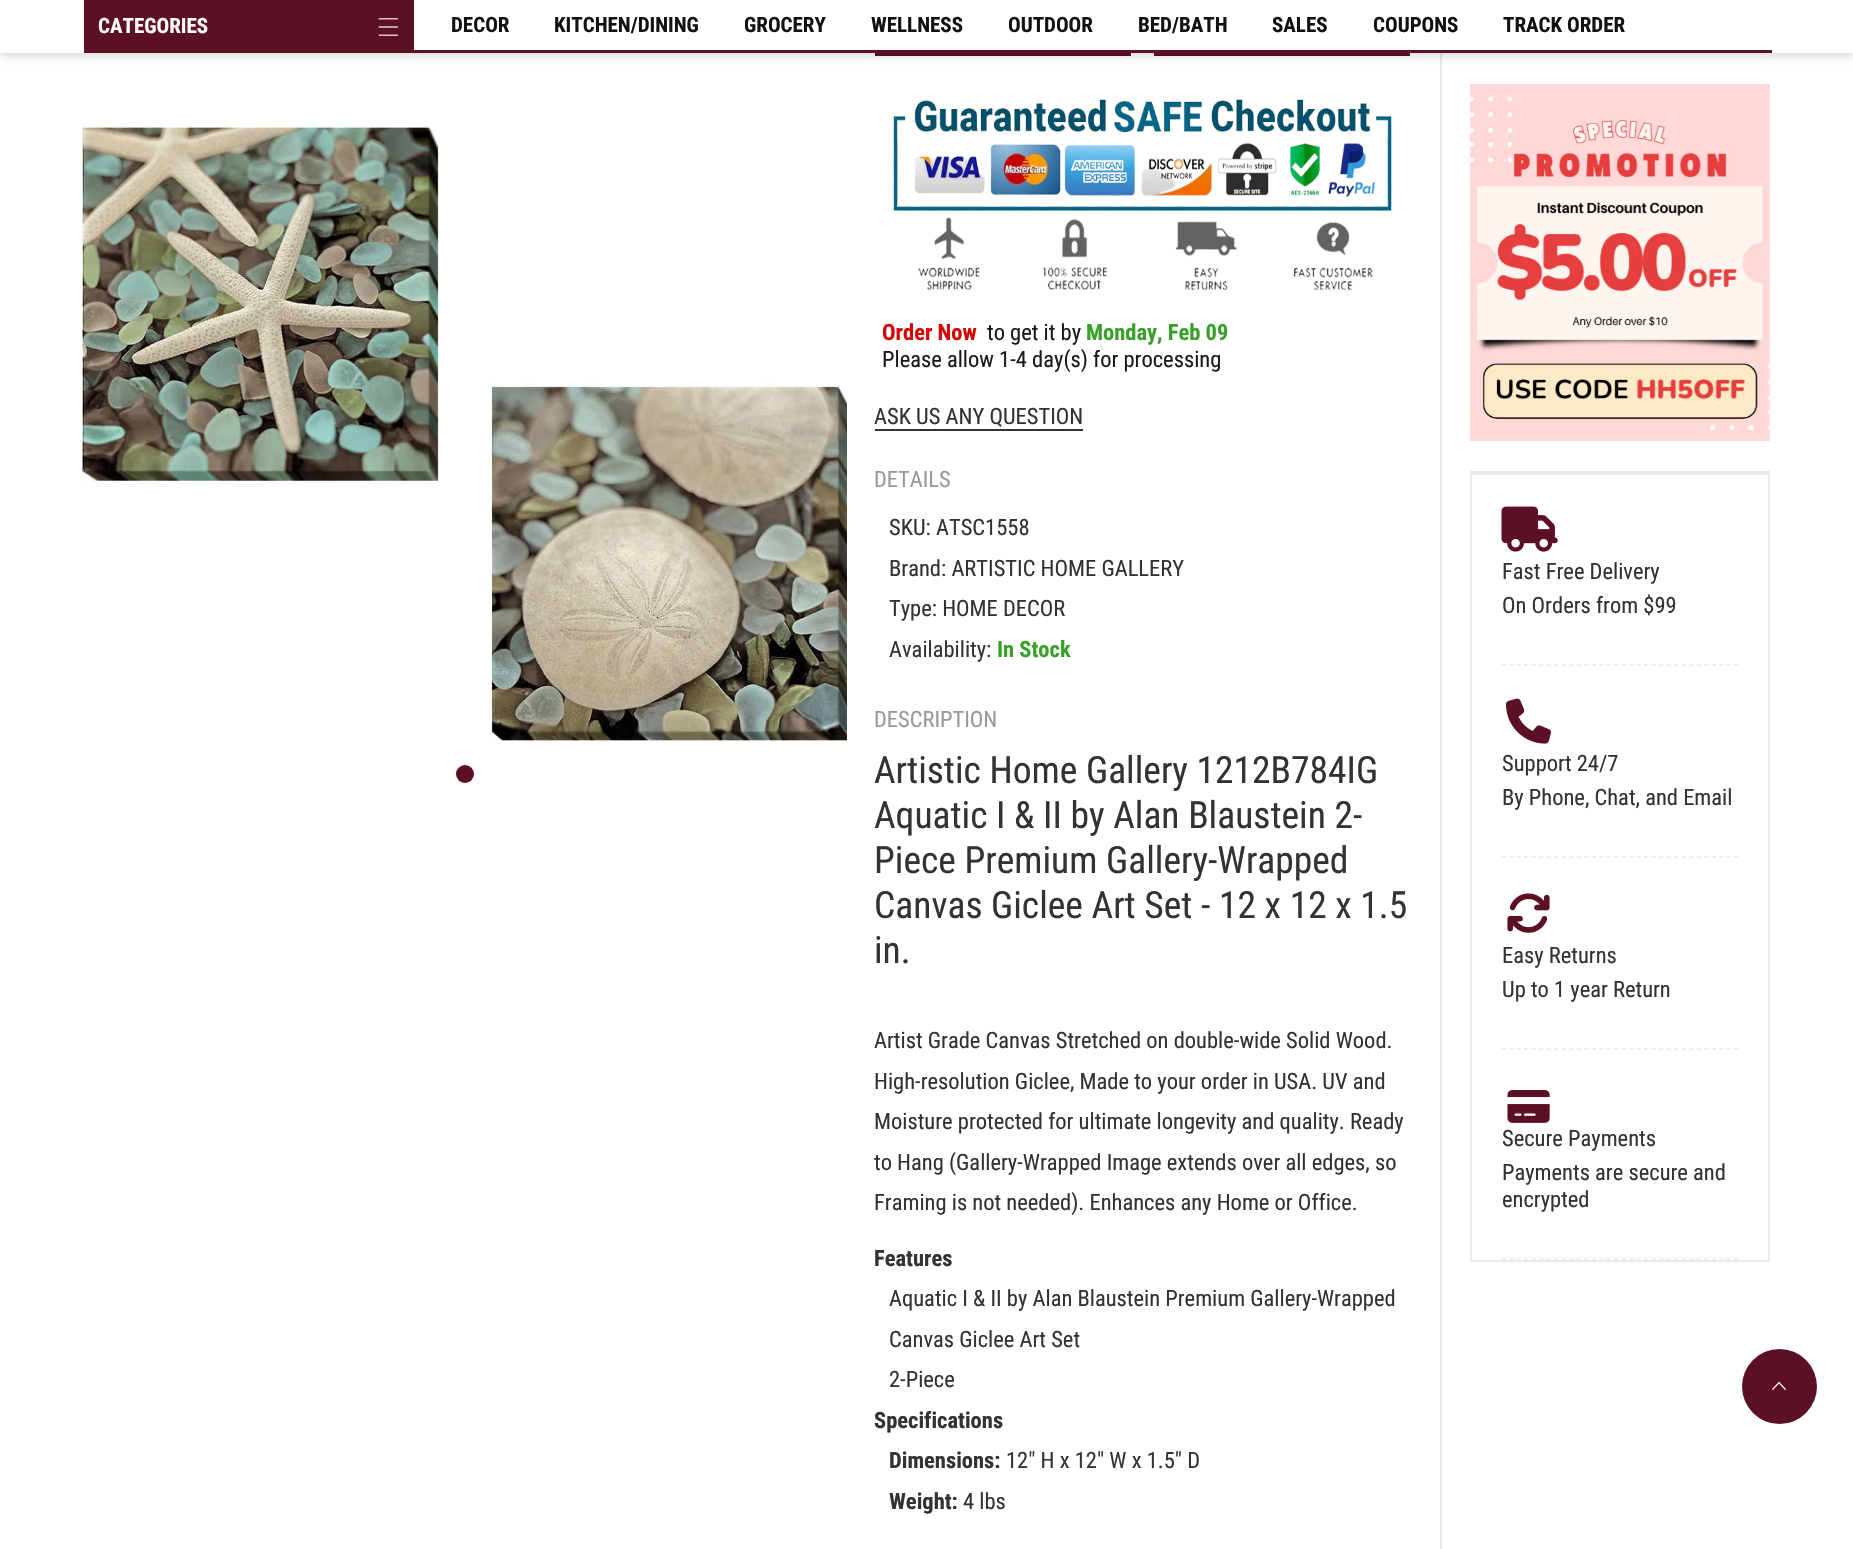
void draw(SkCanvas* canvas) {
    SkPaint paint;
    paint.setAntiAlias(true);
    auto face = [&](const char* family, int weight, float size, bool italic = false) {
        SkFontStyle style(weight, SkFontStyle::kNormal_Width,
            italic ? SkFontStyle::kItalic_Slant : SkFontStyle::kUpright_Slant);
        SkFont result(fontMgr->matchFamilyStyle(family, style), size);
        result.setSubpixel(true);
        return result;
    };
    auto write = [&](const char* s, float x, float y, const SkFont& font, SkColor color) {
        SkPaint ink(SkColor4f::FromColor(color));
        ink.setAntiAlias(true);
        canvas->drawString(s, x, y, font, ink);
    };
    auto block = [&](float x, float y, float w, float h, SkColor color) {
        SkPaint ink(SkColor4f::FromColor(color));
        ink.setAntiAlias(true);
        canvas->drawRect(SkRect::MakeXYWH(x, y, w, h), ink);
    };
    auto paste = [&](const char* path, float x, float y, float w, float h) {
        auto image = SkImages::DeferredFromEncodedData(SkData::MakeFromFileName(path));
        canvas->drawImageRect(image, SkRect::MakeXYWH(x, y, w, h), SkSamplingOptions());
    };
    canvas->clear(SK_ColorWHITE);
    block(875, 53, 256, 3, SkColorSetRGB(91, 17, 35));
    block(1154, 53, 256, 3, SkColorSetRGB(91, 17, 35));
    block(1440, 53, 2, 1496, SkColorSetRGB(230, 230, 230));
    paint.setColor(SkColorSetARGB(38, 0, 0, 0));
    paint.setMaskFilter(SkMaskFilter::MakeBlur(kNormal_SkBlurStyle, 4));
    canvas->drawRect(SkRect::MakeXYWH(0, 3, 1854, 53), paint);
    paint.setMaskFilter(nullptr);
    block(0, 0, 1853, 53, SK_ColorWHITE);
    block(414, 50, 1358, 3, SkColorSetRGB(91, 17, 35));
    block(84, 0, 330, 53, SkColorSetRGB(91, 17, 35));
    auto kFont1 = face("Roboto Condensed", 700, 21);
    write("CATEGORIES", 98, 33, kFont1, SK_ColorWHITE);
    paste("pic1.png", 378, 18, 20, 18);
    write("DECOR", 451, 32, kFont1, SkColorSetRGB(18, 18, 18));
    write("KITCHEN/DINING", 554, 32, kFont1, SkColorSetRGB(18, 18, 18));
    write("GROCERY", 744, 32, kFont1, SkColorSetRGB(18, 18, 18));
    write("WELLNESS", 871, 32, kFont1, SkColorSetRGB(18, 18, 18));
    write("OUTDOOR", 1008, 32, kFont1, SkColorSetRGB(18, 18, 18));
    write("BED/BATH", 1138, 32, kFont1, SkColorSetRGB(18, 18, 18));
    write("SALES", 1272, 32, kFont1, SkColorSetRGB(18, 18, 18));
    write("COUPONS", 1373, 32, kFont1, SkColorSetRGB(18, 18, 18));
    write("TRACK ORDER", 1503, 32, kFont1, SkColorSetRGB(18, 18, 18));
    paste("pic2.png", 82, 123, 765, 620);
    paint.setColor(SkColorSetRGB(91, 17, 35));
    canvas->drawCircle(465, 774, 9, paint);
    paste("pic3.png", 893, 99, 499, 191);
    auto kFont2 = face("Roboto Condensed", 700, 22.5f);
    write("Order Now", 882, 340, kFont2, SkColorSetRGB(216, 4, 4));
    auto kFont3 = face("Roboto Condensed", 400, 22.5f);
    write("to get it by", 987, 340, kFont3, SkColorSetRGB(26, 26, 26));
    write("Monday, Feb 09", 1086, 340, kFont2, SkColorSetRGB(57, 161, 42));
    write("Please allow 1-4 day(s) for processing", 882, 367, kFont3, SkColorSetRGB(26, 26, 26));
    write("ASK US ANY QUESTION", 874, 424, kFont3, SkColorSetRGB(51, 51, 51));
    block(875, 429, 208, 2, SkColorSetRGB(51, 51, 51));
    write("DETAILS", 874, 487, kFont3, SkColorSetRGB(153, 153, 153));
    write("SKU: ATSC1558", 889, 535, kFont3, SkColorSetRGB(51, 51, 51));
    write("Brand: ARTISTIC HOME GALLERY", 889, 576, kFont3, SkColorSetRGB(51, 51, 51));
    write("Type: HOME DECOR", 889, 616, kFont3, SkColorSetRGB(51, 51, 51));
    write("Availability:", 889, 657, kFont3, SkColorSetRGB(51, 51, 51));
    write("In Stock", 997, 657, kFont2, SkColorSetRGB(57, 161, 42));
    write("DESCRIPTION", 874, 727, kFont3, SkColorSetRGB(153, 153, 153));
    auto kFont4 = face("Roboto Condensed", 400, 37.5f);
    write("Artistic Home Gallery 1212B784IG", 874, 783, kFont4, SkColorSetRGB(51, 51, 51));
    write("Aquatic I & II by Alan Blaustein 2-", 874, 828, kFont4, SkColorSetRGB(51, 51, 51));
    write("Piece Premium Gallery-Wrapped", 874, 873, kFont4, SkColorSetRGB(51, 51, 51));
    write("Canvas Giclee Art Set - 12 x 12 x 1.5", 874, 918, kFont4, SkColorSetRGB(51, 51, 51));
    write("in.", 874, 963, kFont4, SkColorSetRGB(51, 51, 51));
    write("Artist Grade Canvas Stretched on double-wide Solid Wood.", 874, 1048, kFont3, SkColorSetRGB(51, 51, 51));
    write("High-resolution Giclee, Made to your order in USA. UV and", 874, 1089, kFont3, SkColorSetRGB(51, 51, 51));
    write("Moisture protected for ultimate longevity and quality. Ready", 874, 1129, kFont3, SkColorSetRGB(51, 51, 51));
    write("to Hang (Gallery-Wrapped Image extends over all edges, so", 874, 1170, kFont3, SkColorSetRGB(51, 51, 51));
    write("Framing is not needed). Enhances any Home or Office.", 874, 1210, kFont3, SkColorSetRGB(51, 51, 51));
    write("Features", 874, 1266, kFont2, SkColorSetRGB(51, 51, 51));
    write("Aquatic I & II by Alan Blaustein Premium Gallery-Wrapped", 889, 1306, kFont3, SkColorSetRGB(51, 51, 51));
    write("Canvas Giclee Art Set", 889, 1347, kFont3, SkColorSetRGB(51, 51, 51));
    write("2-Piece", 889, 1387, kFont3, SkColorSetRGB(51, 51, 51));
    write("Specifications", 874, 1428, kFont2, SkColorSetRGB(51, 51, 51));
    write("Dimensions:", 889, 1468, kFont2, SkColorSetRGB(51, 51, 51));
    write("12\" H x 12\" W x 1.5\" D", 1006, 1468, kFont3, SkColorSetRGB(51, 51, 51));
    write("Weight:", 889, 1509, kFont2, SkColorSetRGB(51, 51, 51));
    write("4 lbs", 963, 1509, kFont3, SkColorSetRGB(51, 51, 51));
    block(1470, 471, 300, 2, SkColorSetRGB(230, 230, 230));
    paste("pic4.png", 1470, 84, 300, 357);
    paint.setStyle(SkPaint::kStroke_Style);
    paint.setStrokeWidth(2);
    paint.setColor(SkColorSetRGB(235, 235, 235));
    canvas->drawRect(SkRect::MakeXYWH(1471, 474, 298, 787), paint);
    paint.setStrokeWidth(1.5f);
    paint.setPathEffect(SkDashPathEffect::Make({{4.5f, 3}}, 0));
    canvas->drawPath(SkPathBuilder().moveTo(1501.5f, 665).lineTo(1738.5f, 665).detach(), paint);
    paint.setPathEffect(nullptr);
    paste("pic5.png", 1501, 506, 57, 46);
    write("Fast Free Delivery", 1502, 579, kFont3, SkColorSetRGB(51, 51, 51));
    write("On Orders from $99", 1502, 613, kFont3, SkColorSetRGB(51, 51, 51));
    paint.setPathEffect(SkDashPathEffect::Make({{4.5f, 3}}, 0));
    canvas->drawPath(SkPathBuilder().moveTo(1501.5f, 857).lineTo(1738.5f, 857).detach(), paint);
    paint.setPathEffect(nullptr);
    paste("pic6.png", 1506, 698, 45, 46);
    write("Support 24/7", 1502, 771, kFont3, SkColorSetRGB(51, 51, 51));
    write("By Phone, Chat, and Email", 1502, 805, kFont3, SkColorSetRGB(51, 51, 51));
    paint.setPathEffect(SkDashPathEffect::Make({{4.5f, 3}}, 0));
    canvas->drawPath(SkPathBuilder().moveTo(1501.5f, 1049).lineTo(1738.5f, 1049).detach(), paint);
    paint.setPathEffect(nullptr);
    paste("pic7.png", 1507, 893, 43, 40);
    write("Easy Returns", 1502, 963, kFont3, SkColorSetRGB(51, 51, 51));
    write("Up to 1 year Return", 1502, 997, kFont3, SkColorSetRGB(51, 51, 51));
    paint.setPathEffect(SkDashPathEffect::Make({{4.5f, 3}}, 0));
    canvas->drawPath(SkPathBuilder().moveTo(1501.5f, 1259).lineTo(1738.5f, 1259).detach(), paint);
    paint.setPathEffect(nullptr);
    paste("pic8.png", 1507, 1090, 43, 33);
    write("Secure Payments", 1502, 1146, kFont3, SkColorSetRGB(51, 51, 51));
    write("Payments are secure and", 1502, 1180, kFont3, SkColorSetRGB(51, 51, 51));
    write("encrypted", 1502, 1207, kFont3, SkColorSetRGB(51, 51, 51));
    paint.setStyle(SkPaint::kFill_Style);
    paint.setColor(SkColorSetRGB(91, 17, 35));
    canvas->drawCircle(1779.5f, 1386.5f, 37.5f, paint);
    paste("pic9.png", 1772, 1381, 14, 9);
}
